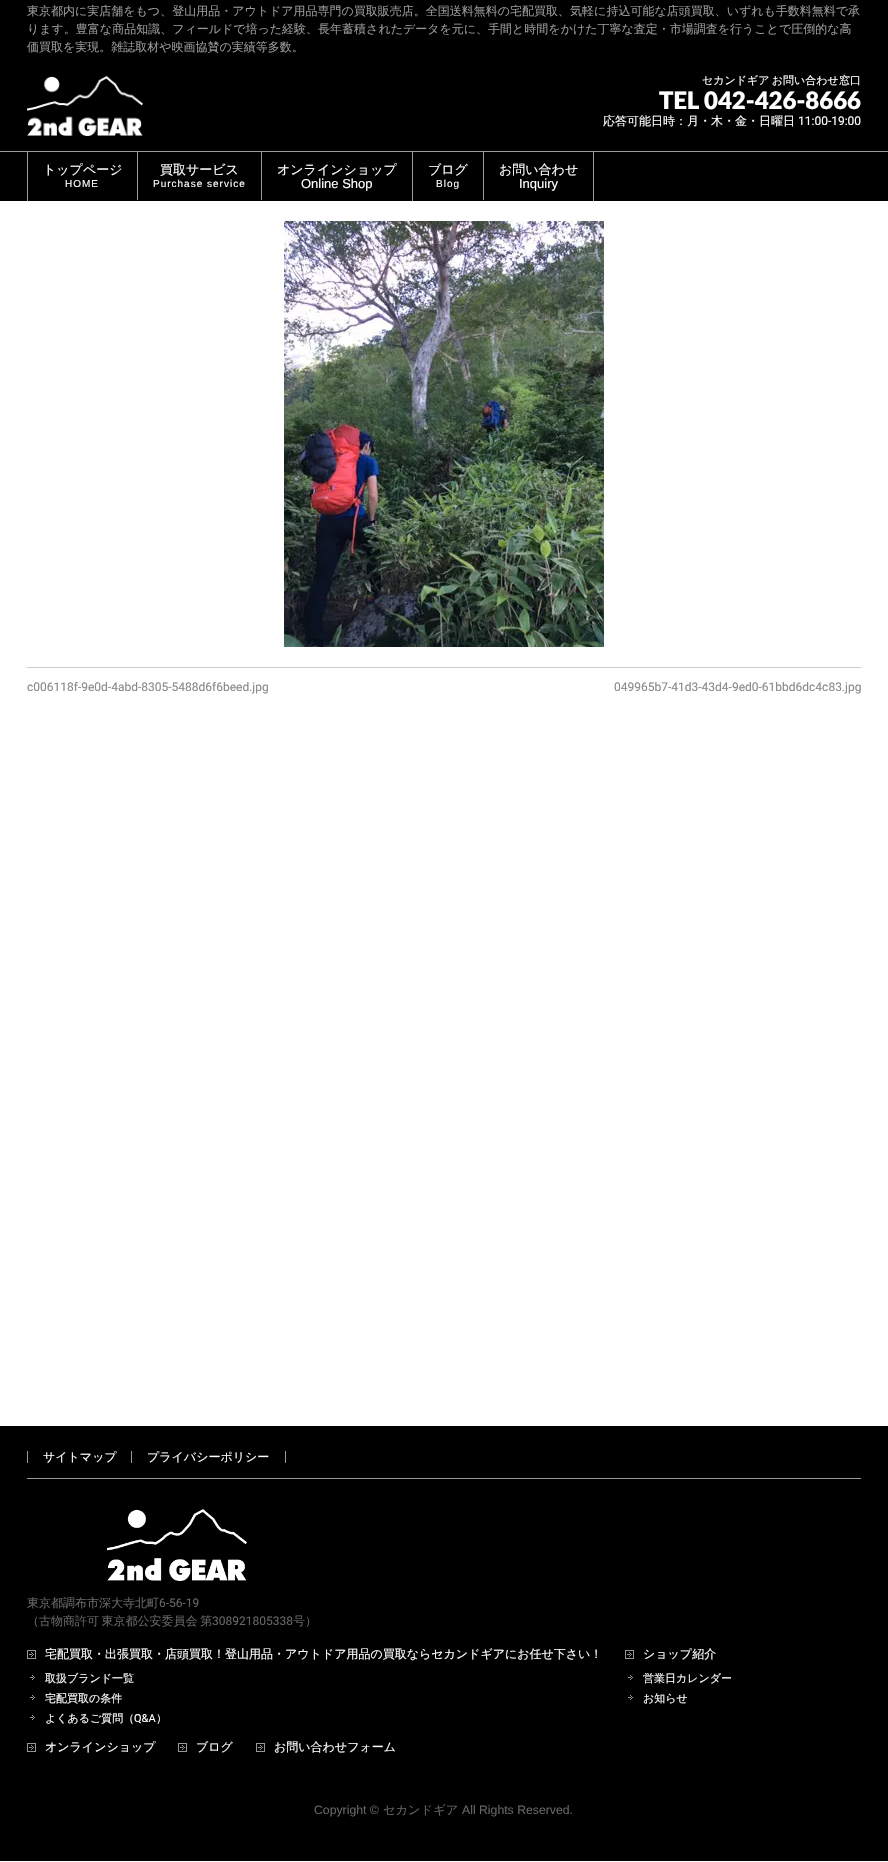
void draw(SkCanvas* canvas) {
    SkPaint paint;
    paint.setAntiAlias(true);
    auto face = [&](const char* family, int weight, float size, bool italic = false) {
        SkFontStyle style(weight, SkFontStyle::kNormal_Width,
            italic ? SkFontStyle::kItalic_Slant : SkFontStyle::kUpright_Slant);
        SkFont result(fontMgr->matchFamilyStyle(family, style), size);
        result.setSubpixel(true);
        return result;
    };
    auto write = [&](const char* s, float x, float y, const SkFont& font, SkColor color) {
        SkPaint ink(SkColor4f::FromColor(color));
        ink.setAntiAlias(true);
        canvas->drawString(s, x, y, font, ink);
    };
    auto writeSpaced = [&](const char* s, float x, float y, const SkFont& font, const SkPaint& ink, float letter, float word) {
        std::vector<SkGlyphID> glyphs(font.countText(s, strlen(s), SkTextEncoding::kUTF8));
        std::vector<float> xs(glyphs.size());
        font.textToGlyphs(s, strlen(s), SkTextEncoding::kUTF8, glyphs);
        font.getXPos(glyphs, xs, x);
        float extra = 0;
        for (size_t i = 0; i < glyphs.size(); i++) {
            xs[i] += extra;
            extra += letter + word * (glyphs[i] == font.unicharToGlyph(' '));
        }
        canvas->drawTextBlob(SkTextBlob::MakeFromPosHGlyphs(glyphs, xs, y, font), 0, 0, ink);
    };
    auto block = [&](float x, float y, float w, float h, SkColor color) {
        SkPaint ink(SkColor4f::FromColor(color));
        ink.setAntiAlias(true);
        canvas->drawRect(SkRect::MakeXYWH(x, y, w, h), ink);
    };
    auto paste = [&](const char* path, float x, float y, float w, float h) {
        auto image = SkImages::DeferredFromEncodedData(SkData::MakeFromFileName(path));
        canvas->drawImageRect(image, SkRect::MakeXYWH(x, y, w, h), SkSamplingOptions());
    };
    canvas->clear(SK_ColorWHITE);
    block(0, 0, 888, 151, SK_ColorBLACK);
    auto kFont1 = face("WenQuanYi Zen Hei", 500, 12);
    write("東京都内に実店舗をもつ、登山用品・アウトドア用品専門の買取販売店。全国送料無料の宅配買取、気軽に持込可能な店頭買取、いずれも手数料無料で承", 27, 15, kFont1, SkColorSetRGB(153, 153, 153));
    write("ります。豊富な商品知識、フィールドで培った経験、長年蓄積されたデータを元に、手間と時間をかけた丁寧な査定・市場調査を行うことで圧倒的な高", 27, 33, kFont1, SkColorSetRGB(153, 153, 153));
    write("価買取を実現。雑誌取材や映画協賛の実績等多数。", 27, 51, kFont1, SkColorSetRGB(153, 153, 153));
    paste("pic1.png", 27, 76, 116, 60);
    auto kFont2 = face("WenQuanYi Zen Hei", 500, 11);
    paint.setColor(SK_ColorWHITE);
    writeSpaced("セカンドギア お問い合わせ窓口", 702, 84, kFont2, paint, 0, -1);
    auto kFont3 = face("Lato", 900, 24);
    write("TEL 042-426-8666", 659, 109, kFont3, SK_ColorWHITE);
    write("応答可能日時：月・木・金・日曜日", 603, 125, kFont1, SK_ColorWHITE);
    auto kFont4 = face("Roboto", 400, 12);
    write("11:00-19:00", 798, 125, kFont4, SK_ColorWHITE);
    block(0, 152, 888, 49, SK_ColorBLACK);
    block(0, 151, 888, 1, SkColorSetRGB(153, 153, 153));
    block(27, 152, 1, 49, SkColorSetRGB(153, 153, 153));
    block(137, 152, 1, 48, SkColorSetRGB(153, 153, 153));
    auto kFont5 = face("WenQuanYi Zen Hei", 500, 13);
    write("トップページ", 43, 174, kFont5, SK_ColorWHITE);
    auto kFont6 = face("Liberation Sans", 400, 10);
    writeSpaced("HOME", 65, 187, kFont6, paint, 1, 0);
    block(261, 152, 1, 48, SkColorSetRGB(153, 153, 153));
    write("買取サービス", 160, 174, kFont5, SK_ColorWHITE);
    writeSpaced("Purchase service", 153, 187, kFont6, paint, 1, 0);
    block(412, 152, 1, 49, SkColorSetRGB(153, 153, 153));
    write("オンラインショップ", 277, 174, kFont5, SK_ColorWHITE);
    auto kFont7 = face("Liberation Sans", 400, 13);
    write("Online Shop", 301, 188, kFont7, SK_ColorWHITE);
    block(483, 152, 1, 48, SkColorSetRGB(153, 153, 153));
    write("ブログ", 428, 174, kFont5, SK_ColorWHITE);
    writeSpaced("Blog", 436, 187, kFont6, paint, 1, 0);
    block(593, 152, 1, 49, SkColorSetRGB(153, 153, 153));
    write("お問い合わせ", 499, 174, kFont5, SK_ColorWHITE);
    write("Inquiry", 519, 188, kFont7, SK_ColorWHITE);
    paste("pic2.png", 284, 221, 320, 426);
    block(27, 667, 834, 1, SkColorSetRGB(204, 204, 204));
    write("c006118f-9e0d-4abd-8305-5488d6f6beed.jpg", 27, 691, kFont4, SkColorSetRGB(136, 136, 136));
    write("049965b7-41d3-43d4-9ed0-61bbd6dc4c83.jpg", 614, 691, kFont4, SkColorSetRGB(136, 136, 136));
    block(0, 1426, 888, 435, SK_ColorBLACK);
    block(27, 1478, 834, 1, SkColorSetRGB(153, 153, 153));
    block(27, 1451, 1, 12, SkColorSetRGB(153, 153, 153));
    write("サイトマップ", 43, 1461, kFont1, SK_ColorWHITE);
    block(131, 1451, 1, 12, SkColorSetRGB(153, 153, 153));
    write("プライバシーポリシー", 147, 1461, kFont1, SK_ColorWHITE);
    block(285, 1451, 1, 12, SkColorSetRGB(153, 153, 153));
    paste("pic3.png", 107, 1509, 140, 72);
    write("東京都調布市深大寺北町", 27, 1607, kFont1, SkColorSetRGB(102, 102, 102));
    write("6-56-19", 159, 1607, kFont4, SkColorSetRGB(102, 102, 102));
    paint.setColor(SkColorSetRGB(102, 102, 102));
    writeSpaced("（古物商許可 東京都公安委員会 第", 27, 1625, kFont1, paint, 0, -1);
    write("308921805338", 212, 1625, kFont4, SkColorSetRGB(102, 102, 102));
    write("号）", 293, 1625, kFont1, SkColorSetRGB(102, 102, 102));
    paste("pic4.png", 27, 1650, 9, 9);
    write("宅配買取・出張買取・店頭買取！登山用品・アウトドア用品の買取ならセカンドギアにお任せ下さい！", 45, 1658, kFont1, SK_ColorWHITE);
    paste("pic5.png", 30, 1675, 5, 5);
    write("取扱ブランド一覧", 45, 1682, kFont2, SK_ColorWHITE);
    paste("pic5.png", 30, 1695, 5, 5);
    write("宅配買取の条件", 45, 1702, kFont2, SK_ColorWHITE);
    paste("pic5.png", 30, 1715, 5, 5);
    write("よくあるご質問（", 45, 1722, kFont2, SK_ColorWHITE);
    auto kFont8 = face("Roboto", 400, 11);
    write("Q&A", 134, 1722, kFont8, SK_ColorWHITE);
    write("）", 156, 1722, kFont2, SK_ColorWHITE);
    paste("pic4.png", 625, 1650, 9, 9);
    write("ショップ紹介", 643, 1658, kFont1, SK_ColorWHITE);
    paste("pic5.png", 628, 1675, 5, 5);
    write("営業日カレンダー", 643, 1682, kFont2, SK_ColorWHITE);
    paste("pic5.png", 628, 1695, 5, 5);
    write("お知らせ", 643, 1702, kFont2, SK_ColorWHITE);
    paste("pic4.png", 27, 1743, 9, 9);
    write("オンラインショップ", 45, 1751, kFont1, SK_ColorWHITE);
    paste("pic4.png", 178, 1743, 9, 9);
    write("ブログ", 196, 1751, kFont1, SK_ColorWHITE);
    paste("pic4.png", 256, 1743, 9, 9);
    write("お問い合わせフォーム", 274, 1751, kFont1, SK_ColorWHITE);
    auto kFont9 = face("Liberation Sans", 400, 12.25f);
    write("Copyright ©", 314, 1814, kFont9, SkColorSetRGB(102, 102, 102));
    auto kFont10 = face("WenQuanYi Zen Hei", 500, 12.25f);
    write("セカンドギア", 383, 1814, kFont10, SkColorSetRGB(102, 102, 102));
    write("All Rights Reserved.", 462, 1814, kFont9, SkColorSetRGB(102, 102, 102));
}
